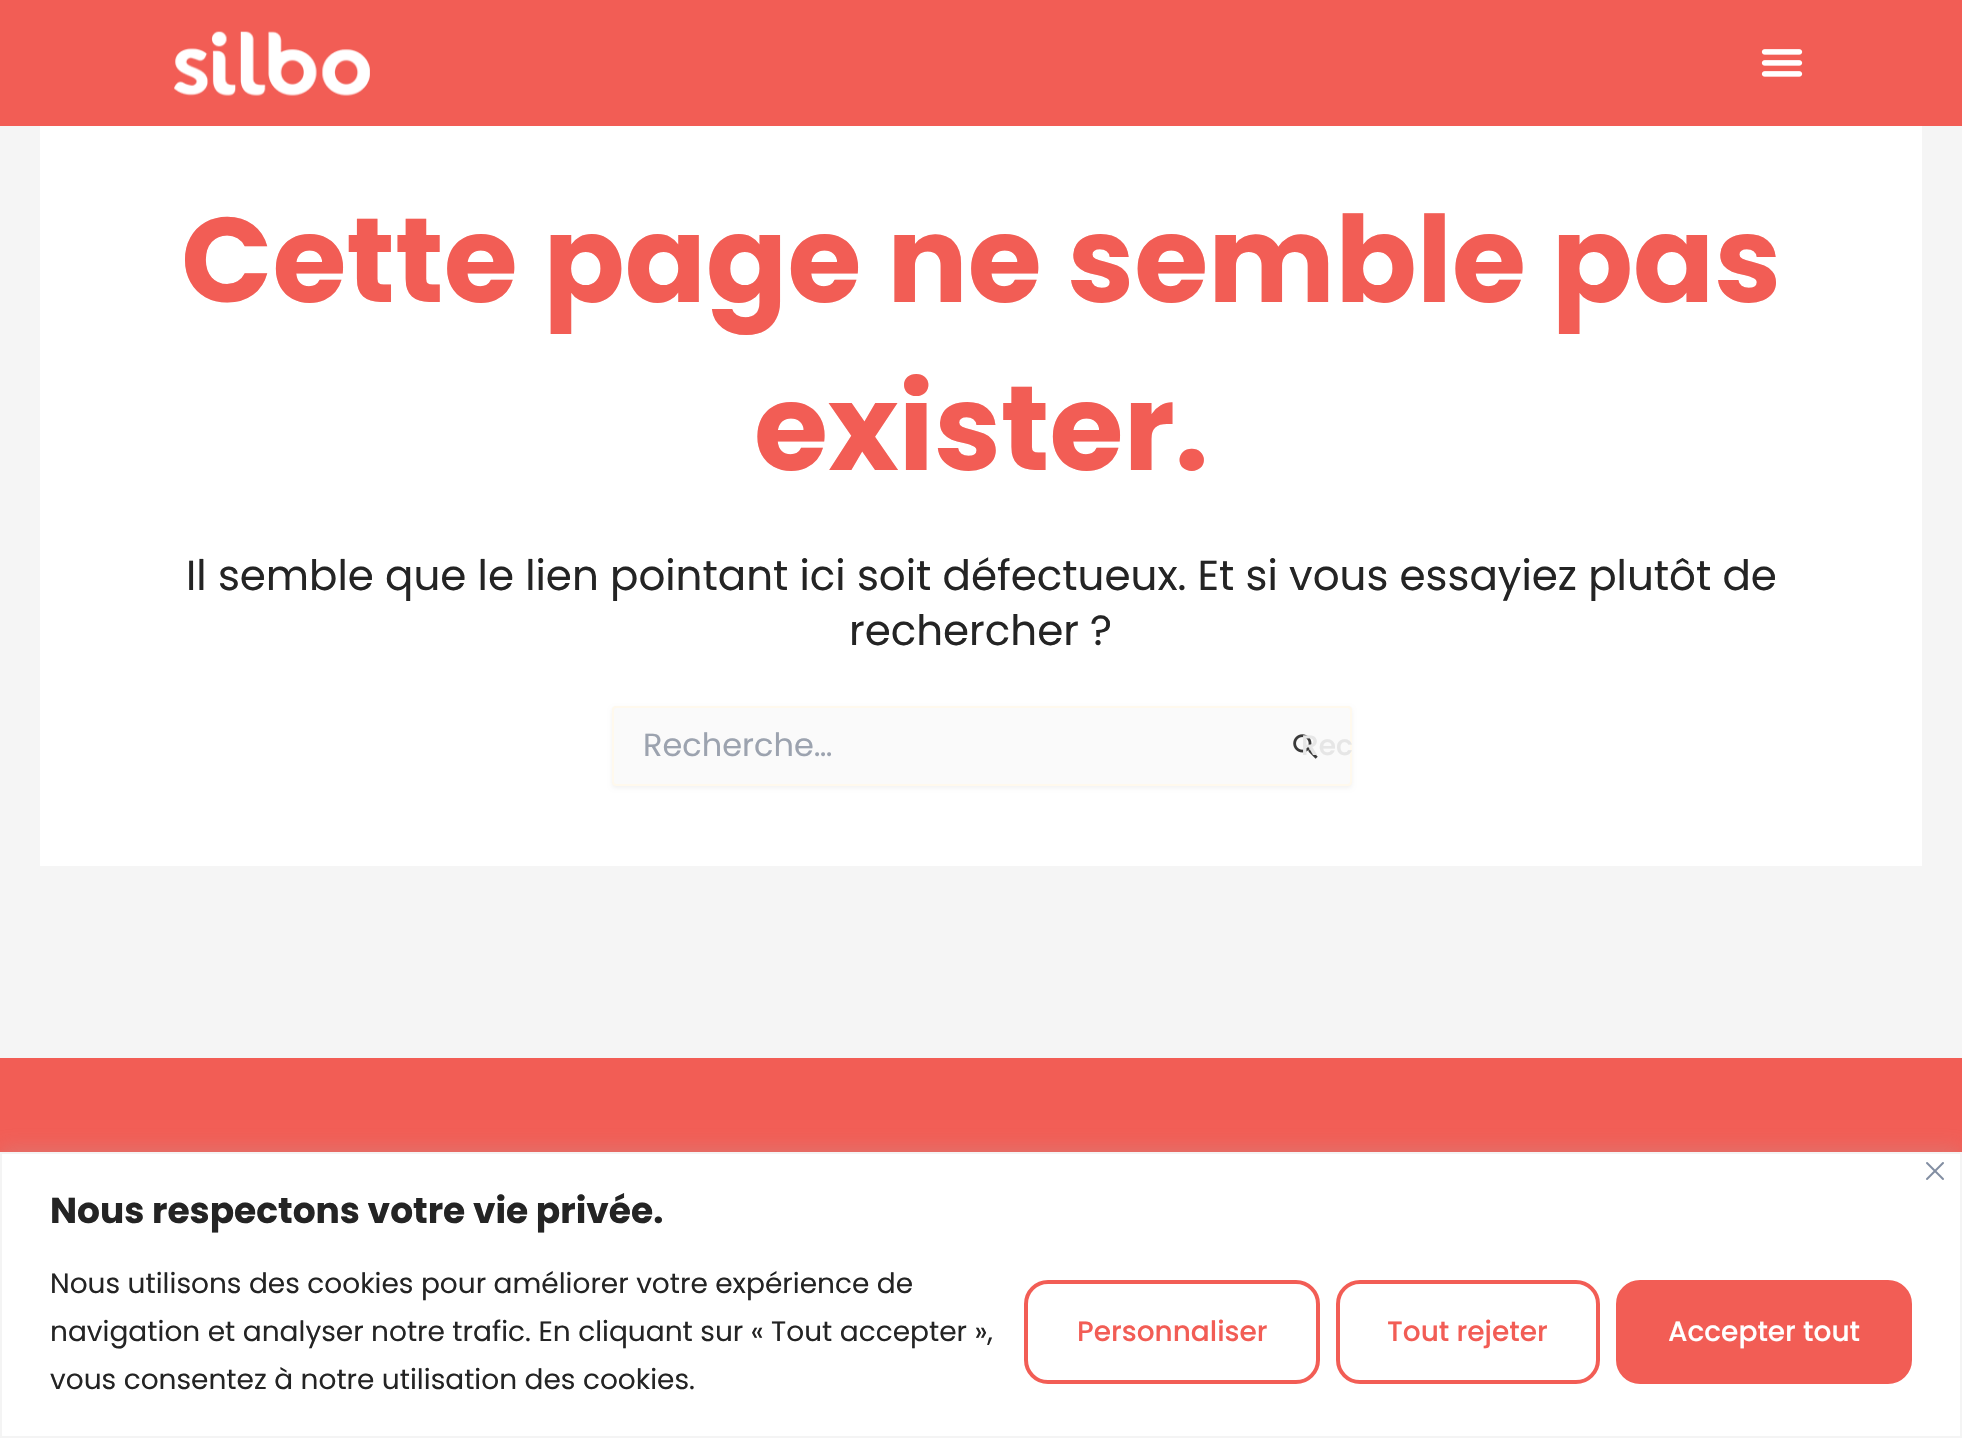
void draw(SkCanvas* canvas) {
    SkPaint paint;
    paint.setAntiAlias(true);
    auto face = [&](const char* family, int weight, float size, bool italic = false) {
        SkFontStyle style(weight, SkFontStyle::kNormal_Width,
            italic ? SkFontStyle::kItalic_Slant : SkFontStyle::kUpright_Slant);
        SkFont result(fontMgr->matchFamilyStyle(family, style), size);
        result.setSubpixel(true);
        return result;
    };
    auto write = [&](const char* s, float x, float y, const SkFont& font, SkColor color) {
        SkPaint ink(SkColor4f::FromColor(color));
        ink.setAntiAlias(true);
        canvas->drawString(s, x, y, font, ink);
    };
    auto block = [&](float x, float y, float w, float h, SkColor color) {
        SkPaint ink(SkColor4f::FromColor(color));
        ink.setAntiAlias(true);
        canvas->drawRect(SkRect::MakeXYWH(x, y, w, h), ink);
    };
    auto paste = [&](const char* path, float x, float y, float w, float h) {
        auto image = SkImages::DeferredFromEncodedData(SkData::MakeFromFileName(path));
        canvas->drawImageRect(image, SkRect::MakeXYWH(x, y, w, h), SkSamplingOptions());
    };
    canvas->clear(SkColorSetRGB(245, 245, 245));
    block(0, 0, 1962, 126, SkColorSetRGB(242, 93, 85));
    paste("pic1.png", 174, 31, 196, 65);
    paste("pic2.png", 1761, 49, 42, 28);
    block(40, 126, 1882, 740, SK_ColorWHITE);
    auto kFont1 = face("Poppins", 700, 120);
    write("Cette page ne semble pas", 181, 302, kFont1, SkColorSetRGB(242, 93, 85));
    write("exister.", 754, 470, kFont1, SkColorSetRGB(242, 93, 85));
    auto kFont2 = face("Poppins", 400, 42);
    write("Il semble que le lien pointant ici soit défectueux. Et si vous essayiez plutôt de", 186, 590, kFont2, SkColorSetRGB(36, 36, 36));
    write("rechercher ?", 849, 645, kFont2, SkColorSetRGB(36, 36, 36));
    paint.setColor(SkColorSetARGB(13, 0, 0, 0));
    paint.setMaskFilter(SkMaskFilter::MakeBlur(kNormal_SkBlurStyle, 2));
    canvas->drawRoundRect(SkRect::MakeXYWH(612, 708, 740, 80), 4, 4, paint);
    paint.setMaskFilter(nullptr);
    paint.setColor(SkColorSetRGB(250, 250, 250));
    canvas->drawRoundRect(SkRect::MakeXYWH(613, 707, 738, 78), 3, 3, paint);
    paint.setStyle(SkPaint::kStroke_Style);
    paint.setStrokeWidth(2);
    paint.setColor(SkColorSetRGB(255, 249, 237));
    canvas->drawRoundRect(SkRect::MakeXYWH(613, 707, 738, 78), 3, 3, paint);
    auto kFont3 = face("Poppins", 400, 32);
    write("Recherche…", 643, 756, kFont3, SkColorSetRGB(156, 163, 175));
    paste("pic3.png", 1293, 734, 25, 25);
    auto kFont4 = face("Poppins", 500, 28);
    write("Rec", 1301, 755, kFont4, SkColorSetRGB(230, 230, 230));
    block(0, 1058, 1962, 94, SkColorSetRGB(242, 93, 85));
    paint.setStyle(SkPaint::kFill_Style);
    paint.setColor(SkColorSetARGB(77, 172, 171, 171));
    paint.setMaskFilter(SkMaskFilter::MakeBlur(kNormal_SkBlurStyle, 10));
    canvas->drawRect(SkRect::MakeXYWH(0, 1150, 1962, 286), paint);
    paint.setMaskFilter(nullptr);
    paint.setColor(SK_ColorWHITE);
    canvas->drawRect(SkRect::MakeXYWH(1, 1153, 1960, 284), paint);
    paint.setStyle(SkPaint::kStroke_Style);
    paint.setColor(SkColorSetRGB(244, 244, 244));
    canvas->drawRect(SkRect::MakeXYWH(1, 1153, 1960, 284), paint);
    paste("pic4.png", 1926, 1162, 18, 18);
    auto kFont5 = face("Poppins", 700, 36);
    write("Nous respectons votre vie privée.", 50, 1223, kFont5, SkColorSetRGB(36, 36, 36));
    auto kFont6 = face("Poppins", 400, 28);
    write("Nous utilisons des cookies pour améliorer votre expérience de", 50, 1293, kFont6, SkColorSetRGB(36, 36, 36));
    write("navigation et analyser notre trafic. En cliquant sur « Tout accepter »,", 50, 1341, kFont6, SkColorSetRGB(36, 36, 36));
    write("vous consentez à notre utilisation des cookies.", 50, 1389, kFont6, SkColorSetRGB(36, 36, 36));
    paint.setStrokeWidth(4);
    paint.setColor(SkColorSetRGB(242, 93, 85));
    canvas->drawRoundRect(SkRect::MakeXYWH(1026, 1282, 292, 100), 22, 22, paint);
    write("Personnaliser", 1077, 1341, kFont4, SkColorSetRGB(242, 93, 85));
    canvas->drawRoundRect(SkRect::MakeXYWH(1338, 1282, 260, 100), 22, 22, paint);
    write("Tout rejeter", 1387, 1341, kFont4, SkColorSetRGB(242, 93, 85));
    paint.setStyle(SkPaint::kFill_Style);
    canvas->drawRoundRect(SkRect::MakeXYWH(1618, 1282, 292, 100), 22, 22, paint);
    paint.setStyle(SkPaint::kStroke_Style);
    canvas->drawRoundRect(SkRect::MakeXYWH(1618, 1282, 292, 100), 22, 22, paint);
    write("Accepter tout", 1668, 1341, kFont4, SK_ColorWHITE);
}
